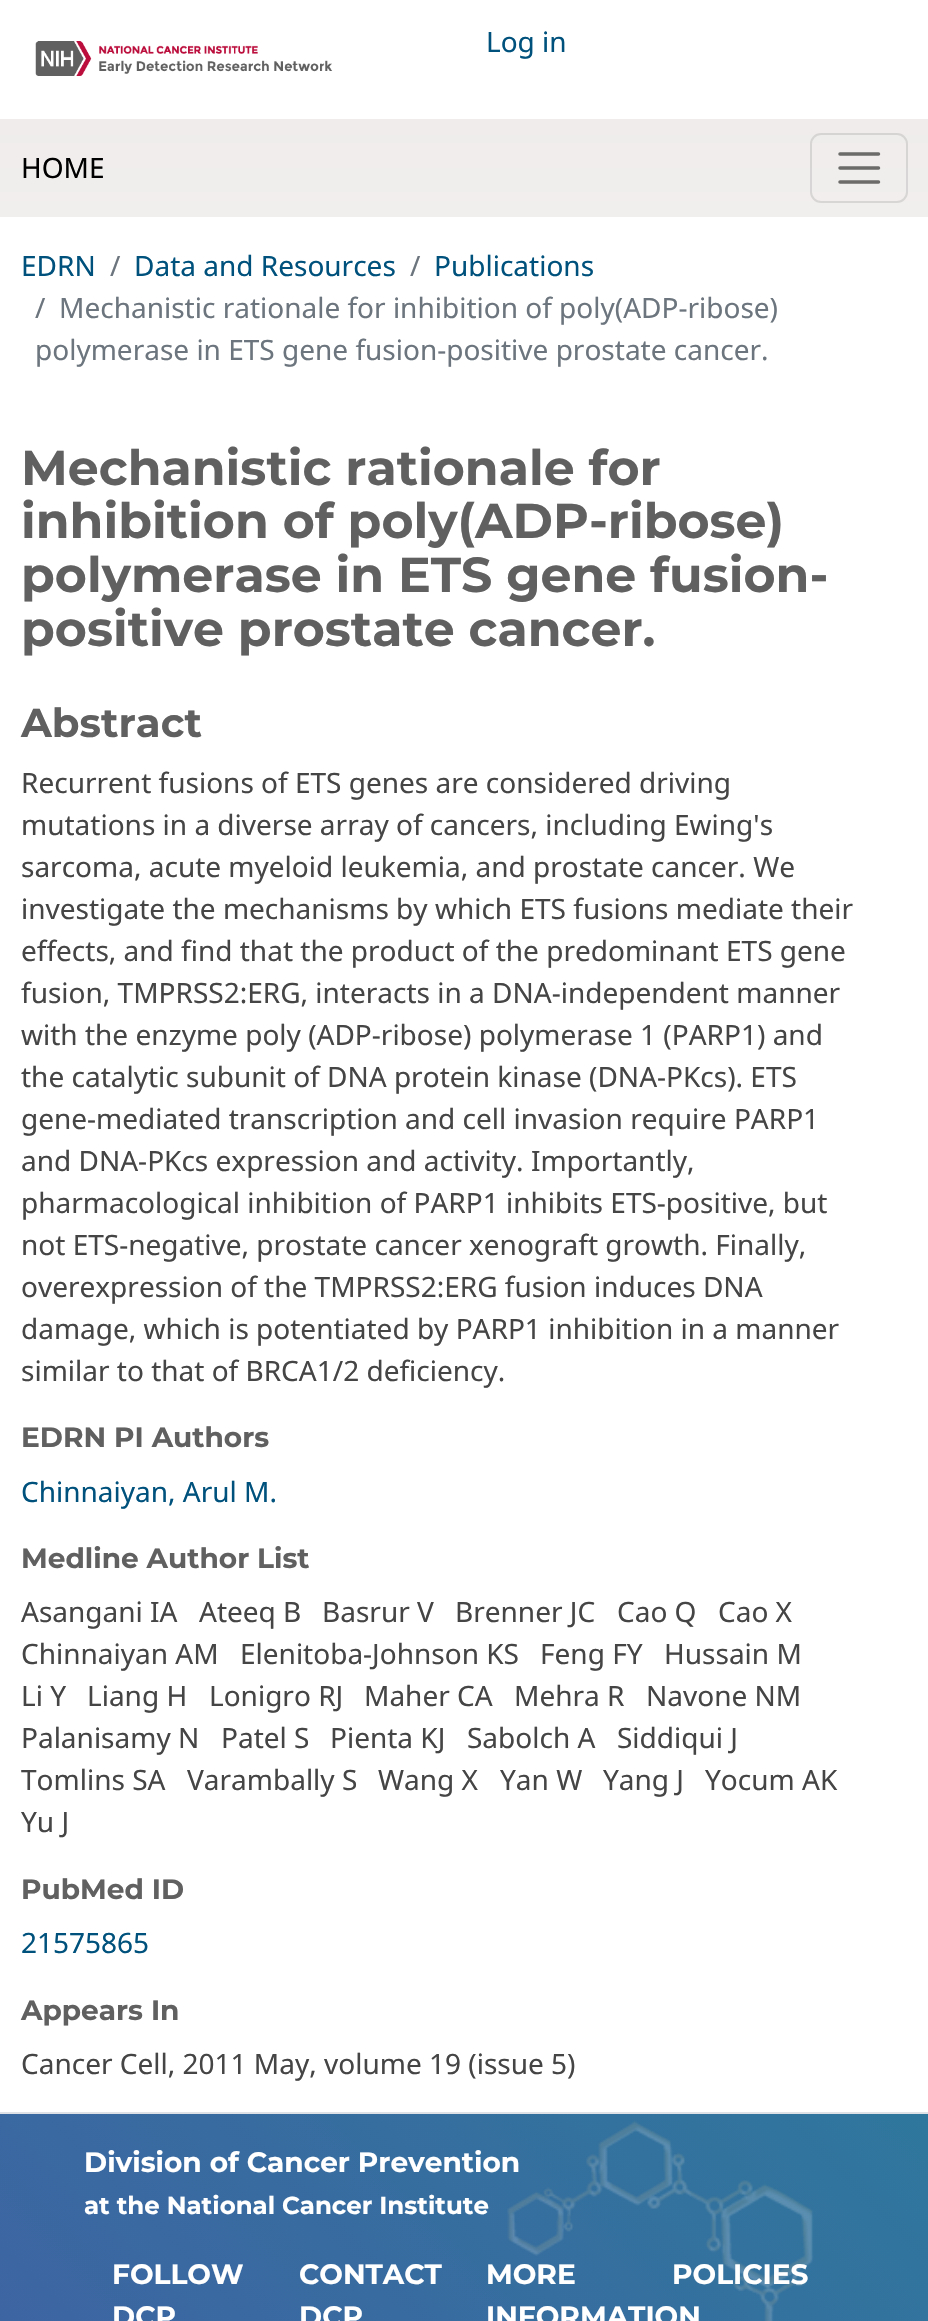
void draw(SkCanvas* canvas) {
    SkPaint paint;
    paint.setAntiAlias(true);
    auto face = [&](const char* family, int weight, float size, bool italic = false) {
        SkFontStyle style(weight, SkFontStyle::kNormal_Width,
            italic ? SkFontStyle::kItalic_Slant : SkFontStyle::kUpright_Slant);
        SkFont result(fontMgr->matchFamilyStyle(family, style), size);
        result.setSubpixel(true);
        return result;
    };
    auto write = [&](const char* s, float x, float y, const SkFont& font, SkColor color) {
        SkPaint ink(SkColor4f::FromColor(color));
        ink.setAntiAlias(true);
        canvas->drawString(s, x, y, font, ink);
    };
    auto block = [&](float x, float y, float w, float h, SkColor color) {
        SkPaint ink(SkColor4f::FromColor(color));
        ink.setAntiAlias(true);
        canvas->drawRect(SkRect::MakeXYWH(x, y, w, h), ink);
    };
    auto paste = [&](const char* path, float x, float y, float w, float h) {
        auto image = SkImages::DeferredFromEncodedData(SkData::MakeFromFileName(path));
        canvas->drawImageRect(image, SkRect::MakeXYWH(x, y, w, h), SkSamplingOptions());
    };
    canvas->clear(SK_ColorWHITE);
    paste("pic1.png", 35, 41, 298, 35);
    auto kFont1 = face("Noto Sans", 400, 28);
    write("Log in", 486, 52, kFont1, SkColorSetRGB(0, 82, 125));
    {
        const SkColor colors[] = {SkColorSetRGB(239, 236, 235), SkColorSetRGB(241, 239, 238)};
        const float stops[] = {0, 1};
        const SkPoint ends[] = {{465, 119}, {465, 217}};
        paint.setShader(SkGradientShader::MakeLinear(ends, colors, stops, 2, SkTileMode::kClamp));
        paint.setAlpha(255);
    }
    canvas->drawRect(SkRect::MakeXYWH(0, 119, 928, 98), paint);
    write("HOME", 21, 178, kFont1, SK_ColorBLACK);
    paint.setStyle(SkPaint::kStroke_Style);
    paint.setStrokeWidth(2);
    paint.setShader(nullptr);
    paint.setColor(SkColorSetARGB(26, 0, 0, 0));
    canvas->drawRoundRect(SkRect::MakeXYWH(811, 134, 96, 68), 10, 10, paint);
    paint.setStrokeWidth(3.5f);
    paint.setStrokeCap(SkPaint::kRound_Cap);
    paint.setColor(SkColorSetRGB(108, 107, 106));
    canvas->drawPath(SkPathBuilder().moveTo(840, 154).lineTo(878.5f, 154).moveTo(840, 168).lineTo(878.5f, 168).moveTo(840, 182).lineTo(878.5f, 182).detach(), paint);
    write("EDRN", 21, 276, kFont1, SkColorSetRGB(0, 82, 125));
    write("/", 110, 276, kFont1, SkColorSetRGB(108, 117, 125));
    write("Data and Resources", 134, 276, kFont1, SkColorSetRGB(0, 82, 125));
    write("/", 410, 276, kFont1, SkColorSetRGB(108, 117, 125));
    write("Publications", 434, 276, kFont1, SkColorSetRGB(0, 82, 125));
    write("/", 35, 318, kFont1, SkColorSetRGB(108, 117, 125));
    write("Mechanistic rationale for inhibition of poly(ADP-ribose)", 59, 318, kFont1, SkColorSetRGB(108, 117, 125));
    write("polymerase in ETS gene fusion-positive prostate cancer.", 35, 360, kFont1, SkColorSetRGB(108, 117, 125));
    auto kFont2 = face("Montserrat", 100, 49);
    write("Mechanistic rationale for", 21, 485, kFont2, SkColorSetRGB(96, 96, 96));
    write("inhibition of poly(ADP-ribose)", 21, 538, kFont2, SkColorSetRGB(96, 96, 96));
    write("polymerase in ETS gene fusion-", 21, 592, kFont2, SkColorSetRGB(96, 96, 96));
    write("positive prostate cancer.", 21, 646, kFont2, SkColorSetRGB(96, 96, 96));
    auto kFont3 = face("Montserrat", 100, 40.25f);
    write("Abstract", 21, 737, kFont3, SkColorSetRGB(96, 96, 96));
    write("Recurrent fusions of ETS genes are considered driving", 21, 793, kFont1, SkColorSetRGB(69, 69, 69));
    write("mutations in a diverse array of cancers, including Ewing's", 21, 835, kFont1, SkColorSetRGB(69, 69, 69));
    write("sarcoma, acute myeloid leukemia, and prostate cancer. We", 21, 877, kFont1, SkColorSetRGB(69, 69, 69));
    write("investigate the mechanisms by which ETS fusions mediate their", 21, 919, kFont1, SkColorSetRGB(69, 69, 69));
    write("effects, and find that the product of the predominant ETS gene", 21, 961, kFont1, SkColorSetRGB(69, 69, 69));
    write("fusion, TMPRSS2:ERG, interacts in a DNA-independent manner", 21, 1003, kFont1, SkColorSetRGB(69, 69, 69));
    write("with the enzyme poly (ADP-ribose) polymerase 1 (PARP1) and", 21, 1045, kFont1, SkColorSetRGB(69, 69, 69));
    write("the catalytic subunit of DNA protein kinase (DNA-PKcs). ETS", 21, 1087, kFont1, SkColorSetRGB(69, 69, 69));
    write("gene-mediated transcription and cell invasion require PARP1", 21, 1129, kFont1, SkColorSetRGB(69, 69, 69));
    write("and DNA-PKcs expression and activity. Importantly,", 21, 1171, kFont1, SkColorSetRGB(69, 69, 69));
    write("pharmacological inhibition of PARP1 inhibits ETS-positive, but", 21, 1213, kFont1, SkColorSetRGB(69, 69, 69));
    write("not ETS-negative, prostate cancer xenograft growth. Finally,", 21, 1255, kFont1, SkColorSetRGB(69, 69, 69));
    write("overexpression of the TMPRSS2:ERG fusion induces DNA", 21, 1297, kFont1, SkColorSetRGB(69, 69, 69));
    write("damage, which is potentiated by PARP1 inhibition in a manner", 21, 1339, kFont1, SkColorSetRGB(69, 69, 69));
    write("similar to that of BRCA1/2 deficiency.", 21, 1381, kFont1, SkColorSetRGB(69, 69, 69));
    auto kFont4 = face("Montserrat", 100, 28);
    write("EDRN PI Authors", 21, 1447, kFont4, SkColorSetRGB(96, 96, 96));
    write("Chinnaiyan, Arul M.", 21, 1502, kFont1, SkColorSetRGB(0, 82, 125));
    write("Medline Author List", 21, 1568, kFont4, SkColorSetRGB(96, 96, 96));
    write("Asangani IA", 21, 1622, kFont1, SkColorSetRGB(69, 69, 69));
    write("Ateeq B", 199, 1622, kFont1, SkColorSetRGB(69, 69, 69));
    write("Basrur V", 322, 1622, kFont1, SkColorSetRGB(69, 69, 69));
    write("Brenner JC", 455, 1622, kFont1, SkColorSetRGB(69, 69, 69));
    write("Cao Q", 617, 1622, kFont1, SkColorSetRGB(69, 69, 69));
    write("Cao X", 718, 1622, kFont1, SkColorSetRGB(69, 69, 69));
    write("Chinnaiyan AM", 21, 1664, kFont1, SkColorSetRGB(69, 69, 69));
    write("Elenitoba-Johnson KS", 240, 1664, kFont1, SkColorSetRGB(69, 69, 69));
    write("Feng FY", 540, 1664, kFont1, SkColorSetRGB(69, 69, 69));
    write("Hussain M", 664, 1664, kFont1, SkColorSetRGB(69, 69, 69));
    write("Li Y", 21, 1706, kFont1, SkColorSetRGB(69, 69, 69));
    write("Liang H", 87, 1706, kFont1, SkColorSetRGB(69, 69, 69));
    write("Lonigro RJ", 209, 1706, kFont1, SkColorSetRGB(69, 69, 69));
    write("Maher CA", 364, 1706, kFont1, SkColorSetRGB(69, 69, 69));
    write("Mehra R", 514, 1706, kFont1, SkColorSetRGB(69, 69, 69));
    write("Navone NM", 646, 1706, kFont1, SkColorSetRGB(69, 69, 69));
    write("Palanisamy N", 21, 1748, kFont1, SkColorSetRGB(69, 69, 69));
    write("Patel S", 221, 1748, kFont1, SkColorSetRGB(69, 69, 69));
    write("Pienta KJ", 330, 1748, kFont1, SkColorSetRGB(69, 69, 69));
    write("Sabolch A", 467, 1748, kFont1, SkColorSetRGB(69, 69, 69));
    write("Siddiqui J", 617, 1748, kFont1, SkColorSetRGB(69, 69, 69));
    write("Tomlins SA", 21, 1790, kFont1, SkColorSetRGB(69, 69, 69));
    write("Varambally S", 187, 1790, kFont1, SkColorSetRGB(69, 69, 69));
    write("Wang X", 378, 1790, kFont1, SkColorSetRGB(69, 69, 69));
    write("Yan W", 500, 1790, kFont1, SkColorSetRGB(69, 69, 69));
    write("Yang J", 603, 1790, kFont1, SkColorSetRGB(69, 69, 69));
    write("Yocum AK", 705, 1790, kFont1, SkColorSetRGB(69, 69, 69));
    write("Yu J", 21, 1832, kFont1, SkColorSetRGB(69, 69, 69));
    write("PubMed ID", 21, 1899, kFont4, SkColorSetRGB(96, 96, 96));
    write("21575865", 21, 1953, kFont1, SkColorSetRGB(0, 82, 125));
    write("Appears In", 21, 2020, kFont4, SkColorSetRGB(96, 96, 96));
    write("Cancer Cell, 2011 May, volume 19 (issue 5)", 21, 2074, kFont1, SkColorSetRGB(69, 69, 69));
    paste("pic2.png", 0, 2114, 928, 207);
    block(0, 2112, 928, 2, SkColorSetRGB(222, 226, 230));
    write("Division of Cancer Prevention", 84, 2172, kFont4, SK_ColorWHITE);
    auto kFont5 = face("Montserrat", 100, 24.5f);
    write("at the National Cancer Institute", 84, 2214, kFont5, SK_ColorWHITE);
    write("FOLLOW", 112, 2284, kFont4, SK_ColorWHITE);
    write("DCP", 112, 2326, kFont4, SK_ColorWHITE);
    write("CONTACT", 299, 2284, kFont4, SK_ColorWHITE);
    write("DCP", 299, 2326, kFont4, SK_ColorWHITE);
    write("MORE", 486, 2284, kFont4, SK_ColorWHITE);
    write("INFORMATION", 486, 2326, kFont4, SK_ColorWHITE);
    write("POLICIES", 672, 2284, kFont4, SK_ColorWHITE);
}
